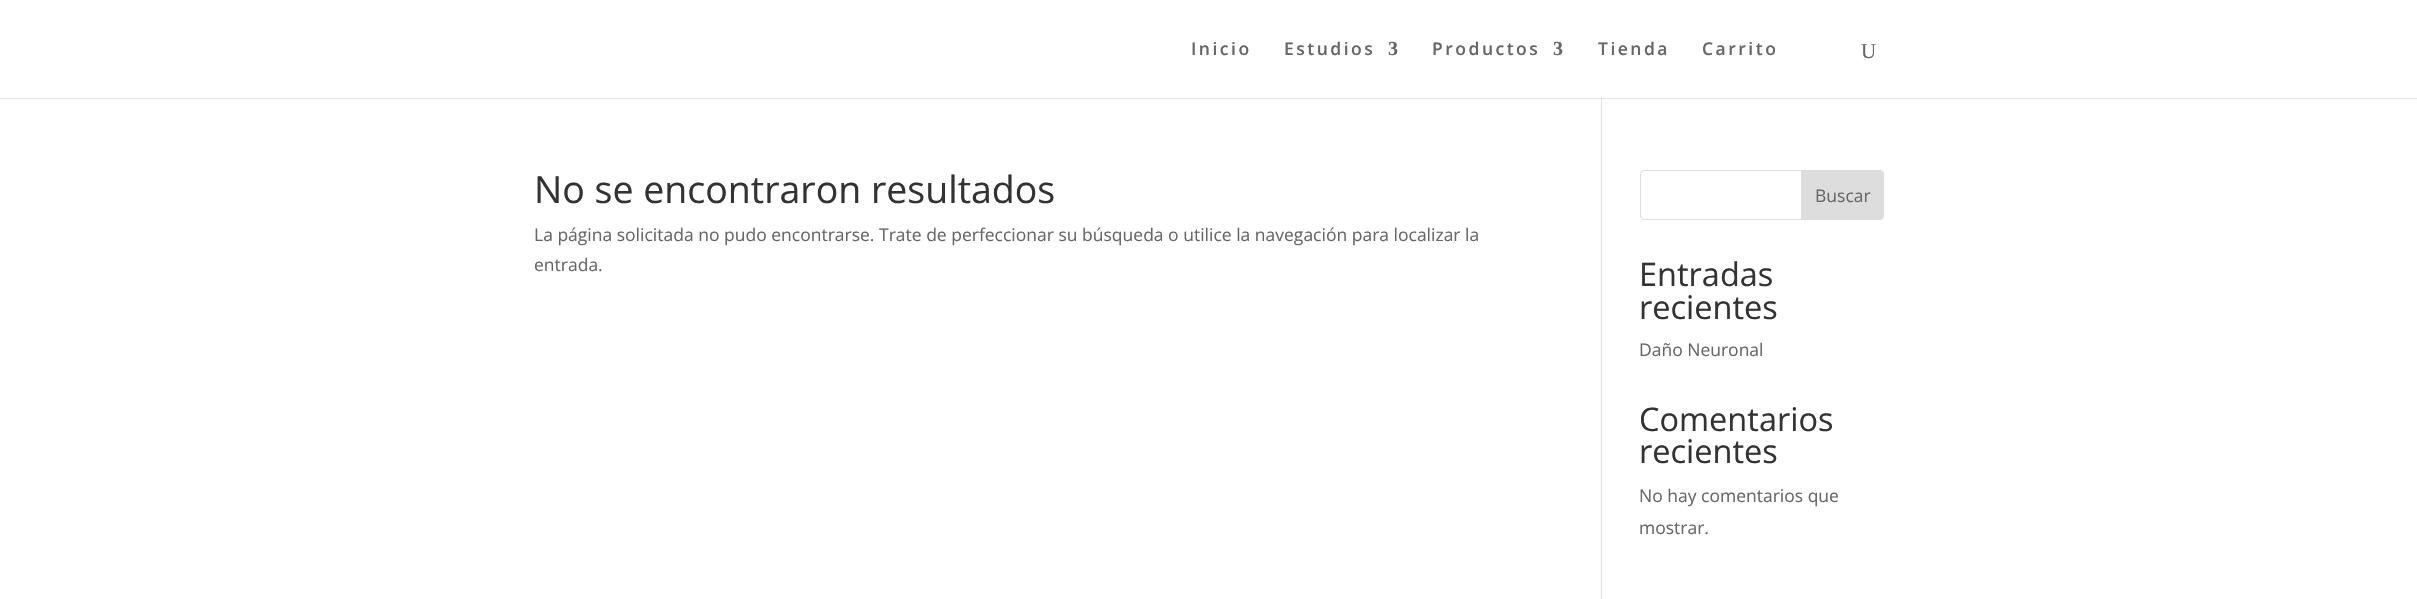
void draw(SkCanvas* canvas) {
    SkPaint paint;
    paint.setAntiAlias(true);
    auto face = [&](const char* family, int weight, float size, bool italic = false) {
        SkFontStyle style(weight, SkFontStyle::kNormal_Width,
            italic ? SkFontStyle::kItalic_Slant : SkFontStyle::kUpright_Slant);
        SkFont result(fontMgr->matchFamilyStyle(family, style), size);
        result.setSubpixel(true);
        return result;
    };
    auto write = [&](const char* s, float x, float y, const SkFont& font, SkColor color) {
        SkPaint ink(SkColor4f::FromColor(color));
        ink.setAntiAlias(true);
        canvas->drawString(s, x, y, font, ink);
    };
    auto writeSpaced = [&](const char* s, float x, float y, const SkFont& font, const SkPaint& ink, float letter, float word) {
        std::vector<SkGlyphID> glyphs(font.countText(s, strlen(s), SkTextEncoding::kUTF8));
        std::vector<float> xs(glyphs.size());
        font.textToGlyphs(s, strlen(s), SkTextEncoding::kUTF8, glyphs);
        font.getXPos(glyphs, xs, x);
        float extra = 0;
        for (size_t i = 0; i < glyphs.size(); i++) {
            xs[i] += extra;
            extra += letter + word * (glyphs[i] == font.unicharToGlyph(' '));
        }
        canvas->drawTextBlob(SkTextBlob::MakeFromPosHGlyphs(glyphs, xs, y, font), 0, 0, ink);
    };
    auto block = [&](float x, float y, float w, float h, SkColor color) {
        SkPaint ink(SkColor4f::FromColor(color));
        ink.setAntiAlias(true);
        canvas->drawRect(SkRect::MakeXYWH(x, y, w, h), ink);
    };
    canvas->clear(SK_ColorWHITE);
    block(1601, 98, 1, 501, SkColorSetRGB(226, 226, 226));
    paint.setColor(SkColorSetARGB(26, 0, 0, 0));
    canvas->drawPath(SkPathBuilder().moveTo(0, 98).lineTo(0, 99).lineTo(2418, 99).lineTo(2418, 1).lineTo(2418, 98).close().detach(), paint);
    auto kFont1 = face("Open Sans", 600, 17.5f);
    paint.setColor(SkColorSetRGB(102, 102, 102));
    writeSpaced("Inicio", 1191, 55, kFont1, paint, 2.5f, 0);
    writeSpaced("Estudios", 1284, 55, kFont1, paint, 2.5f, 0);
    auto kFont2 = face("Liberation Serif", 700, 20);
    writeSpaced("3", 1388, 55, kFont2, paint, 2.5f, 0);
    writeSpaced("Productos", 1432, 55, kFont1, paint, 2.5f, 0);
    writeSpaced("3", 1553, 55, kFont2, paint, 2.5f, 0);
    writeSpaced("Tienda", 1598, 55, kFont1, paint, 2.5f, 0);
    writeSpaced("Carrito", 1702, 55, kFont1, paint, 2.5f, 0);
    auto kFont3 = face("Liberation Serif", 400, 21);
    write("U", 1861, 58, kFont3, SkColorSetRGB(102, 102, 102));
    auto kFont4 = face("Open Sans", 400, 37.5f);
    write("No se encontraron resultados", 534, 203, kFont4, SkColorSetRGB(51, 51, 51));
    auto kFont5 = face("Open Sans", 400, 17.5f);
    write("La página solicitada no pudo encontrarse. Trate de perfeccionar su búsqueda o utilice la navegación para localizar la", 534, 241, kFont5, SkColorSetRGB(102, 102, 102));
    write("entrada.", 534, 271, kFont5, SkColorSetRGB(102, 102, 102));
    paint.setStyle(SkPaint::kStroke_Style);
    paint.setStrokeWidth(1);
    paint.setColor(SkColorSetRGB(221, 221, 221));
    canvas->drawRoundRect(SkRect::MakeXYWH(1640.5f, 170.5f, 243, 49), 3.5f, 3.5f, paint);
    paint.setStyle(SkPaint::kFill_Style);
    canvas->drawPath(SkPathBuilder().moveTo(1801.5f, 170.5f).lineTo(1880, 170.5f).cubicTo(1882, 170.5f, 1883.5f, 172, 1883.5f, 174).lineTo(1883.5f, 216).cubicTo(1883.5f, 218, 1882, 219.5f, 1880, 219.5f).lineTo(1801.5f, 219.5f).close().detach(), paint);
    paint.setStyle(SkPaint::kStroke_Style);
    canvas->drawPath(SkPathBuilder().moveTo(1801.5f, 170.5f).lineTo(1880, 170.5f).cubicTo(1882, 170.5f, 1883.5f, 172, 1883.5f, 174).lineTo(1883.5f, 216).cubicTo(1883.5f, 218, 1882, 219.5f, 1880, 219.5f).lineTo(1801.5f, 219.5f).close().detach(), paint);
    write("Buscar", 1815, 202, kFont5, SkColorSetRGB(102, 102, 102));
    auto kFont6 = face("Open Sans", 400, 32.5f);
    write("Entradas", 1639, 286, kFont6, SkColorSetRGB(51, 51, 51));
    write("recientes", 1639, 319, kFont6, SkColorSetRGB(51, 51, 51));
    write("Daño Neuronal", 1639, 356, kFont5, SkColorSetRGB(102, 102, 102));
    write("Comentarios", 1639, 431, kFont6, SkColorSetRGB(51, 51, 51));
    write("recientes", 1639, 463, kFont6, SkColorSetRGB(51, 51, 51));
    write("No hay comentarios que", 1639, 502, kFont5, SkColorSetRGB(102, 102, 102));
    write("mostrar.", 1639, 534, kFont5, SkColorSetRGB(102, 102, 102));
}
